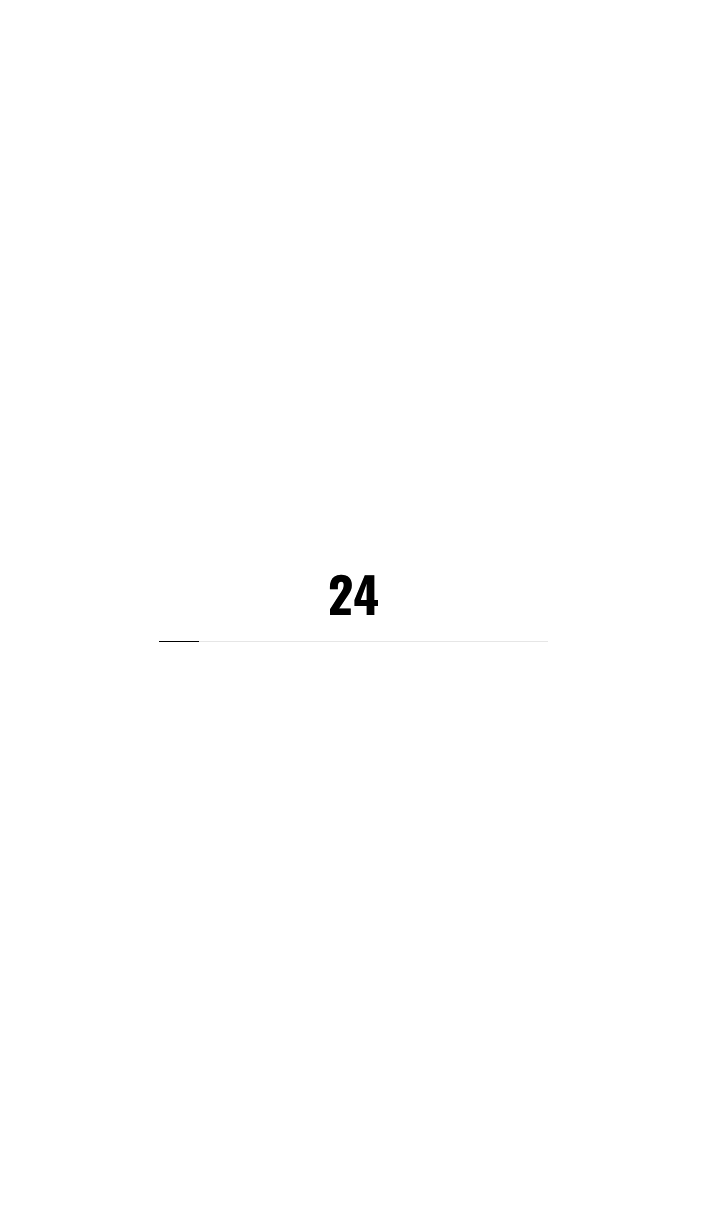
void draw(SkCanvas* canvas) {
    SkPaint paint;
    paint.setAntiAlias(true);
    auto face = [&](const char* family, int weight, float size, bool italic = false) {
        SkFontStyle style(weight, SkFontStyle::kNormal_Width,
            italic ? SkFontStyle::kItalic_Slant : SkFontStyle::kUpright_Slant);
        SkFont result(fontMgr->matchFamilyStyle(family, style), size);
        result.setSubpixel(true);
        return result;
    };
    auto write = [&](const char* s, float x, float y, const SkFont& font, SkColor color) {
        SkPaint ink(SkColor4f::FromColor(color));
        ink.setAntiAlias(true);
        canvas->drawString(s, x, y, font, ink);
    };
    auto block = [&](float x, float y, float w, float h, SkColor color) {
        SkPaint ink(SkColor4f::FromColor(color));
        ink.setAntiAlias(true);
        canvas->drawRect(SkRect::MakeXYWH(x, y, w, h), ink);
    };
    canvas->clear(SK_ColorWHITE);
    auto kFont1 = face("Oswald", 700, 49);
    write("24", 328, 615, kFont1, SK_ColorBLACK);
    block(199, 641, 349, 1, SkColorSetRGB(230, 230, 230));
    block(159, 641, 40, 1, SK_ColorBLACK);
}
